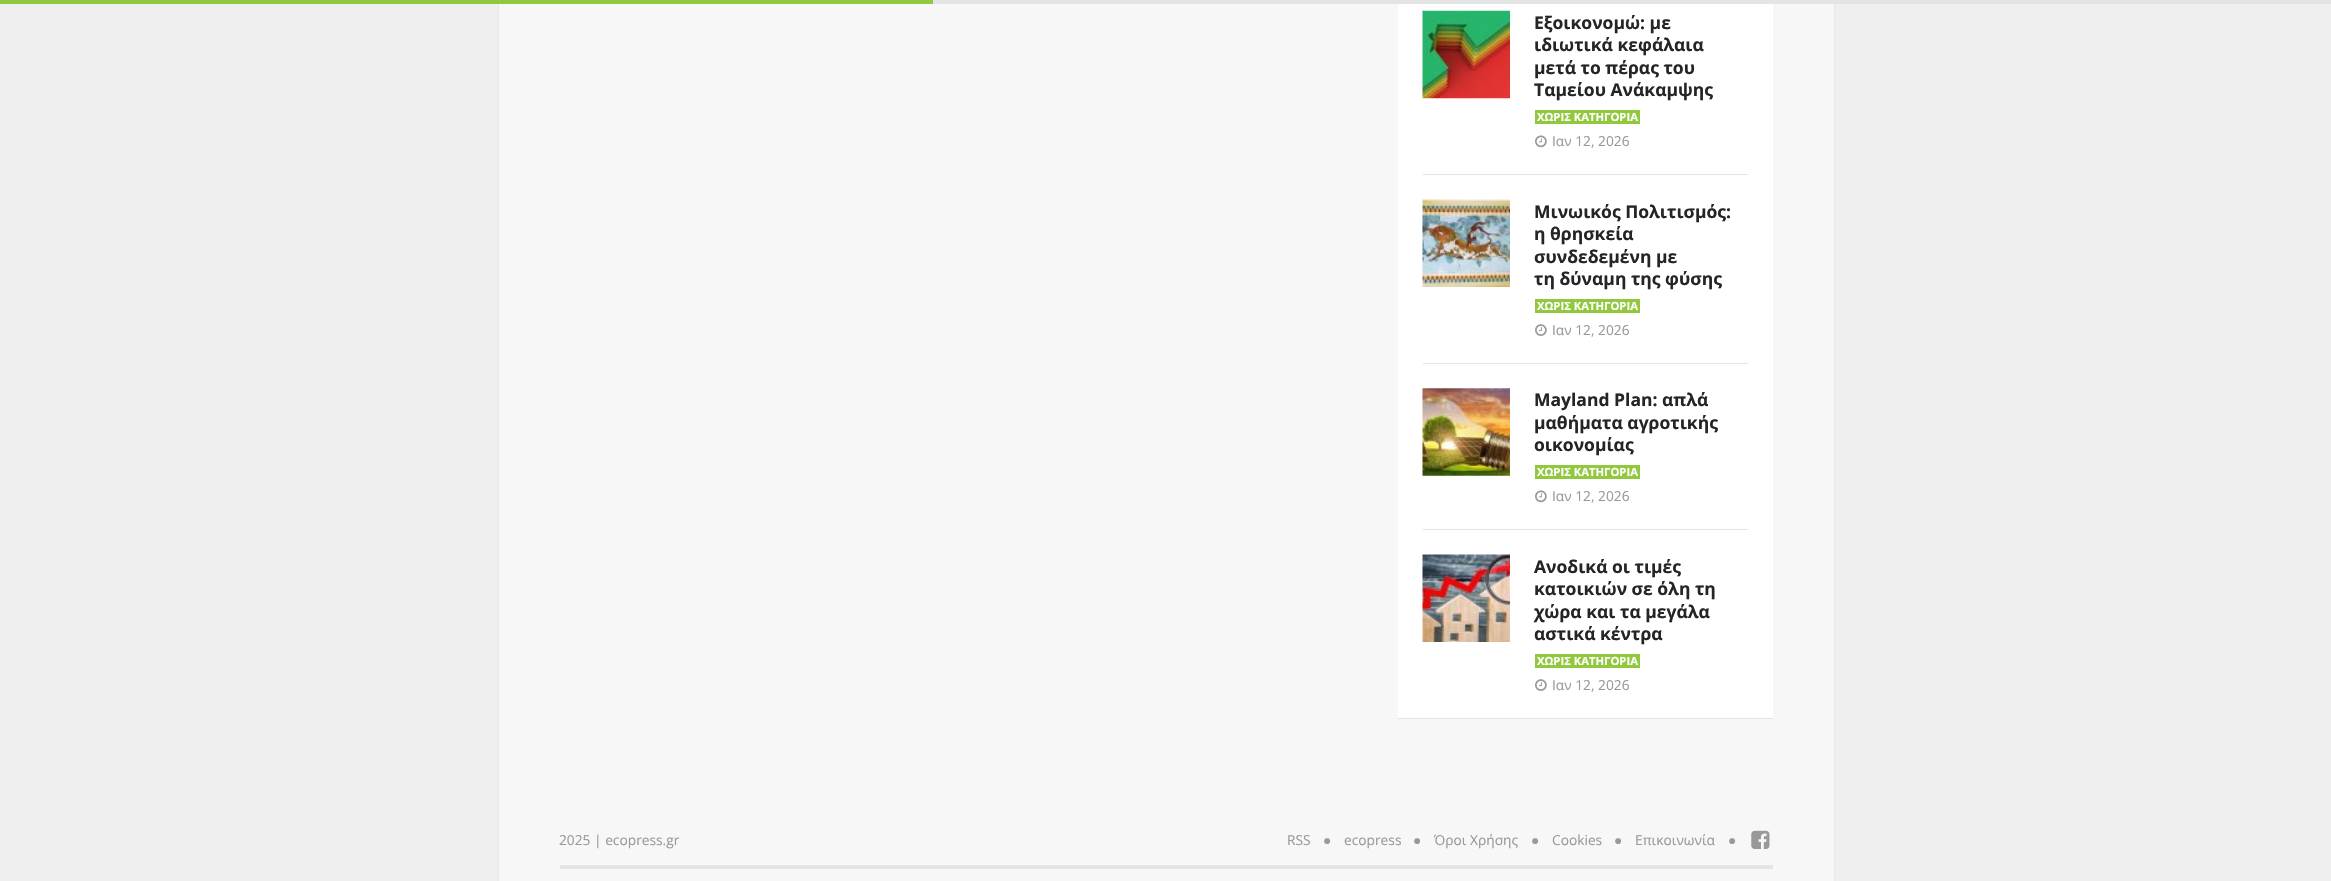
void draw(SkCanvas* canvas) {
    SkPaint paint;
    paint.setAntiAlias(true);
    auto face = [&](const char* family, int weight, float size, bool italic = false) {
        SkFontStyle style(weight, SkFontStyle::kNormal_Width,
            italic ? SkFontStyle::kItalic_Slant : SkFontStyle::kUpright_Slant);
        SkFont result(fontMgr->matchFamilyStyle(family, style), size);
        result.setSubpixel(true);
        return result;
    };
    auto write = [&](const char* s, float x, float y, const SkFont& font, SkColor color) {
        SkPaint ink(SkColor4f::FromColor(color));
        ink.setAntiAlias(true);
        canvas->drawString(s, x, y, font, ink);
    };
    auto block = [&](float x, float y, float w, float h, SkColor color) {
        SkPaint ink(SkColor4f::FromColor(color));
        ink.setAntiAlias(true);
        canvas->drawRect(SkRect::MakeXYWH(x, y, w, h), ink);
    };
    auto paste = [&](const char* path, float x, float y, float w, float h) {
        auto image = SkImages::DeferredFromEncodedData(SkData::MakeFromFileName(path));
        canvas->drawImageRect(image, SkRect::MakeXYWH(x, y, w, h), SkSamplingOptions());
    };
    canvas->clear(SkColorSetRGB(239, 239, 239));
    block(1834, 0, 1, 881, SkColorSetRGB(232, 232, 232));
    block(933, 0, 1398, 4, SkColorSetRGB(228, 228, 228));
    block(498, 0, 1, 881, SkColorSetRGB(232, 232, 232));
    block(0, 0, 933, 4, SkColorSetRGB(146, 200, 62));
    block(499, 4, 1335, 877, SkColorSetRGB(247, 247, 247));
    block(1398, 4, 375, 714, SK_ColorWHITE);
    block(1398, 718, 375, 1, SkColorSetRGB(228, 228, 228));
    paste("pic1.png", 1422, 10, 88, 89);
    auto kFont1 = face("Open Sans", 700, 17.5f);
    write("Εξοικονομώ: με", 1534, 29, kFont1, SkColorSetRGB(37, 37, 37));
    write("ιδιωτικά κεφάλαια", 1534, 51, kFont1, SkColorSetRGB(37, 37, 37));
    write("μετά το πέρας του", 1534, 74, kFont1, SkColorSetRGB(37, 37, 37));
    write("Ταμείου Ανάκαμψης", 1534, 96, kFont1, SkColorSetRGB(37, 37, 37));
    block(1535, 110, 105, 14, SkColorSetRGB(146, 200, 62));
    auto kFont2 = face("Open Sans", 700, 11.25f);
    write("ΧΩΡΙΣ ΚΑΤΗΓΟΡΙΑ", 1537, 121, kFont2, SK_ColorWHITE);
    paste("pic2.png", 1535, 135, 12, 13);
    auto kFont3 = face("Open Sans", 400, 13.75f);
    write("Ιαν 12, 2026", 1552, 146, kFont3, SkColorSetRGB(153, 153, 153));
    block(1423, 174, 325, 1, SkColorSetRGB(228, 228, 228));
    paste("pic3.png", 1422, 199, 88, 88);
    write("Μινωικός Πολιτισμός:", 1534, 218, kFont1, SkColorSetRGB(37, 37, 37));
    write("η θρησκεία", 1534, 240, kFont1, SkColorSetRGB(37, 37, 37));
    write("συνδεδεμένη με", 1534, 263, kFont1, SkColorSetRGB(37, 37, 37));
    write("τη δύναμη της φύσης", 1534, 285, kFont1, SkColorSetRGB(37, 37, 37));
    block(1535, 299, 105, 14, SkColorSetRGB(146, 200, 62));
    write("ΧΩΡΙΣ ΚΑΤΗΓΟΡΙΑ", 1537, 310, kFont2, SK_ColorWHITE);
    paste("pic4.png", 1535, 324, 12, 12);
    write("Ιαν 12, 2026", 1552, 335, kFont3, SkColorSetRGB(153, 153, 153));
    block(1423, 363, 325, 1, SkColorSetRGB(228, 228, 228));
    paste("pic5.png", 1422, 388, 88, 88);
    write("Mayland Plan: απλά", 1534, 406, kFont1, SkColorSetRGB(37, 37, 37));
    write("μαθήματα αγροτικής", 1534, 429, kFont1, SkColorSetRGB(37, 37, 37));
    write("οικονομίας", 1534, 451, kFont1, SkColorSetRGB(37, 37, 37));
    block(1535, 465, 105, 14, SkColorSetRGB(146, 200, 62));
    write("ΧΩΡΙΣ ΚΑΤΗΓΟΡΙΑ", 1537, 476, kFont2, SK_ColorWHITE);
    paste("pic2.png", 1535, 490, 12, 13);
    write("Ιαν 12, 2026", 1552, 501, kFont3, SkColorSetRGB(153, 153, 153));
    block(1423, 529, 325, 1, SkColorSetRGB(228, 228, 228));
    paste("pic6.png", 1422, 554, 88, 88);
    write("Ανοδικά οι τιμές", 1534, 573, kFont1, SkColorSetRGB(37, 37, 37));
    write("κατοικιών σε όλη τη", 1534, 595, kFont1, SkColorSetRGB(37, 37, 37));
    write("χώρα και τα μεγάλα", 1534, 618, kFont1, SkColorSetRGB(37, 37, 37));
    write("αστικά κέντρα", 1534, 640, kFont1, SkColorSetRGB(37, 37, 37));
    block(1535, 654, 105, 14, SkColorSetRGB(146, 200, 62));
    write("ΧΩΡΙΣ ΚΑΤΗΓΟΡΙΑ", 1537, 665, kFont2, SK_ColorWHITE);
    paste("pic4.png", 1535, 679, 12, 12);
    write("Ιαν 12, 2026", 1552, 690, kFont3, SkColorSetRGB(153, 153, 153));
    block(560, 865, 1213, 4, SkColorSetRGB(228, 228, 228));
    write("2025 | ecopress.gr", 559, 845, kFont3, SkColorSetRGB(153, 153, 153));
    write("RSS", 1287, 845, kFont3, SkColorSetRGB(153, 153, 153));
    auto kFont4 = face("Liberation Sans", 400, 13.75f);
    write("●", 1323, 845, kFont4, SkColorSetRGB(153, 153, 153));
    write("ecopress", 1344, 845, kFont3, SkColorSetRGB(153, 153, 153));
    write("●", 1413, 845, kFont4, SkColorSetRGB(153, 153, 153));
    write("Όροι Χρήσης", 1434, 845, kFont3, SkColorSetRGB(153, 153, 153));
    write("●", 1531, 845, kFont4, SkColorSetRGB(153, 153, 153));
    write("Cookies", 1552, 845, kFont3, SkColorSetRGB(153, 153, 153));
    write("●", 1614, 845, kFont4, SkColorSetRGB(153, 153, 153));
    write("Επικοινωνία", 1635, 845, kFont3, SkColorSetRGB(153, 153, 153));
    write("●", 1728, 845, kFont4, SkColorSetRGB(153, 153, 153));
    paste("pic7.png", 1751, 830, 19, 19);
}
